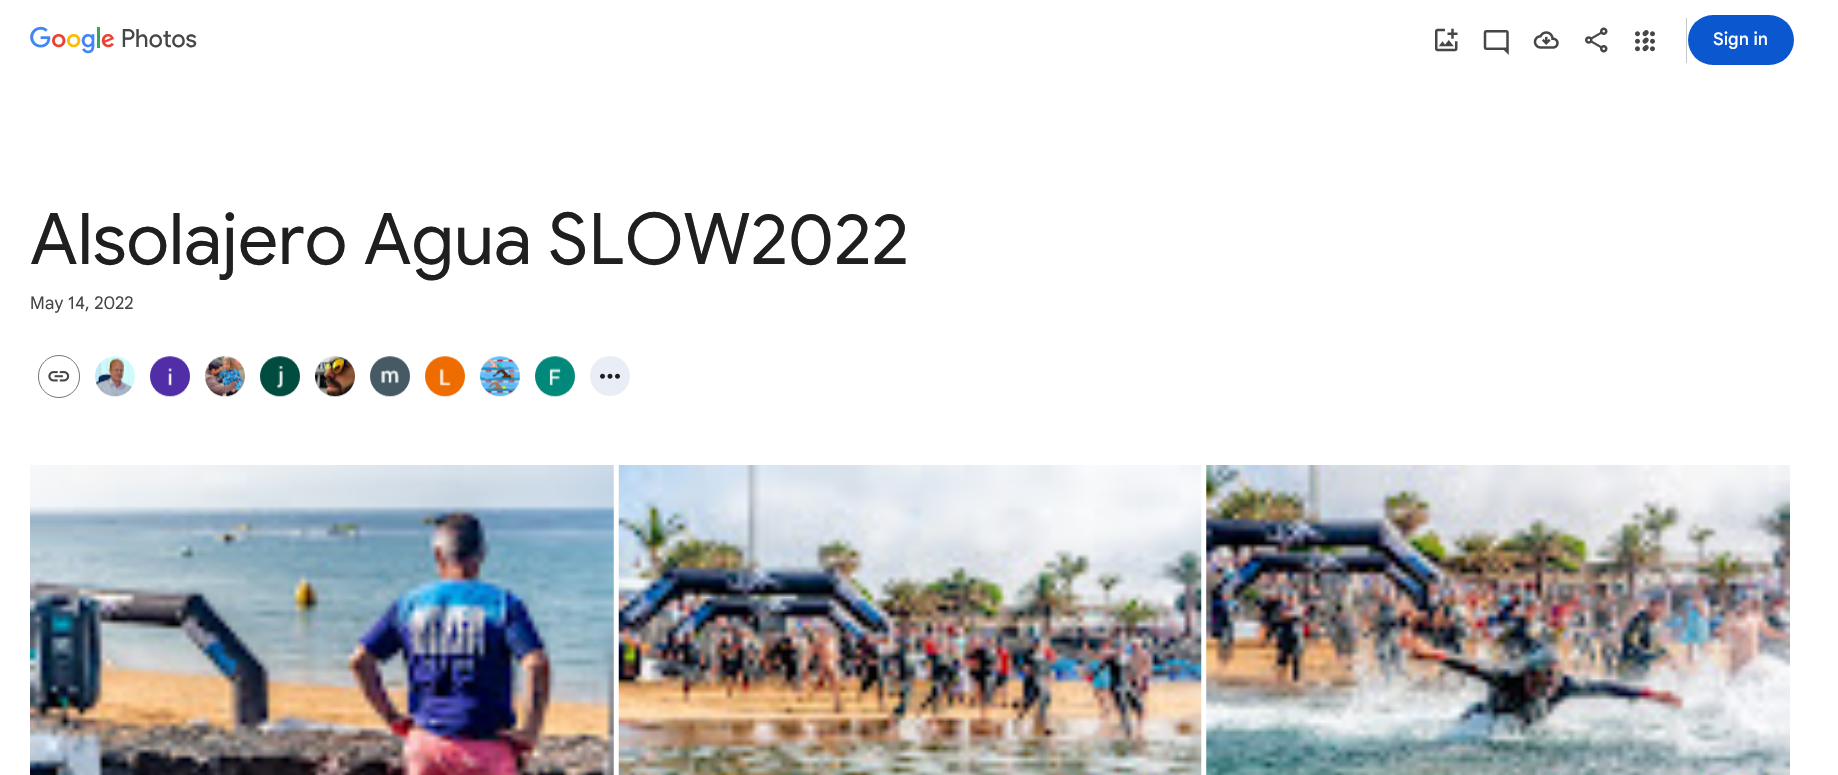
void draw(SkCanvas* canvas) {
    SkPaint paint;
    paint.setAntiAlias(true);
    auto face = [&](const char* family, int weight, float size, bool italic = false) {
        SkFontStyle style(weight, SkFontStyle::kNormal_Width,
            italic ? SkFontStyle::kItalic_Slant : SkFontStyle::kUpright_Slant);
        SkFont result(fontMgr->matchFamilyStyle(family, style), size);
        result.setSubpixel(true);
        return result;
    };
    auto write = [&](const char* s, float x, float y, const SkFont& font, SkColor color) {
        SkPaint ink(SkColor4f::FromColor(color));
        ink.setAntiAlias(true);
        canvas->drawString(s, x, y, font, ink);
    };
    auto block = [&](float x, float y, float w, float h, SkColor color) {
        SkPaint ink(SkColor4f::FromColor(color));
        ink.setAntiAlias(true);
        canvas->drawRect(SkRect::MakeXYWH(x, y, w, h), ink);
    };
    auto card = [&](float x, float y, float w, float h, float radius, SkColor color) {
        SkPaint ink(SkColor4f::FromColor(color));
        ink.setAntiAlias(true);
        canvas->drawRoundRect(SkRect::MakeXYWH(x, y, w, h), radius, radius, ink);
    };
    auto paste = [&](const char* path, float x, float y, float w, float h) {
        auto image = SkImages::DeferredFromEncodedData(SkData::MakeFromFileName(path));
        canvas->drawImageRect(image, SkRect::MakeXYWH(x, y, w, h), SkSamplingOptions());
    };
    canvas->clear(SK_ColorWHITE);
    paste("pic1.png", 30, 26, 84, 28);
    auto kFont1 = face("Product Sans", 400, 25);
    write("Photos", 121, 47, kFont1, SkColorSetRGB(68, 71, 70));
    paste("pic2.png", 1435, 28, 23, 24);
    paste("pic3.png", 1483, 30, 26, 25);
    paste("pic4.png", 1533, 31, 26, 18);
    paste("pic5.png", 1585, 27, 23, 26);
    paste("pic6.png", 1643, 30, 6, 20);
    block(1686, 18, 1, 45, SkColorSetRGB(196, 199, 197));
    auto kFont2 = face("Google Sans", 400, 71.25f);
    write("Alsolajero Agua SLOW2022", 30, 264, kFont2, SkColorSetRGB(31, 31, 31));
    auto kFont3 = face("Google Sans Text", 400, 17.5f);
    write("May 14, 2022", 30, 309, kFont3, SkColorSetRGB(68, 71, 70));
    paint.setStyle(SkPaint::kStroke_Style);
    paint.setStrokeWidth(1);
    paint.setColor(SkColorSetRGB(116, 119, 117));
    canvas->drawRoundRect(SkRect::MakeXYWH(38.5f, 355.5f, 41, 42), 20.5f, 20.5f, paint);
    paste("pic7.png", 48, 371, 22, 11);
    paste("pic8.png", 95, 356, 40, 41);
    paste("pic9.png", 150, 356, 40, 41);
    paste("pic10.png", 205, 356, 40, 41);
    paste("pic11.png", 260, 356, 40, 41);
    paste("pic12.png", 315, 356, 40, 41);
    paste("pic13.png", 370, 356, 40, 41);
    paste("pic14.png", 425, 356, 40, 41);
    paste("pic15.png", 480, 356, 40, 41);
    paste("pic16.png", 535, 356, 40, 41);
    paint.setStyle(SkPaint::kFill_Style);
    paint.setColor(SkColorSetRGB(233, 238, 246));
    canvas->drawCircle(610, 376, 20, paint);
    paste("pic17.png", 600, 373, 20, 6);
    paste("pic18.png", 30, 465, 584, 310);
    paste("pic19.png", 618, 465, 584, 310);
    paste("pic20.png", 1206, 465, 584, 310);
    paste("pic21.png", 1635, 31, 20, 21);
    card(1688, 15, 106, 50, 25, SkColorSetRGB(11, 87, 208));
    auto kFont4 = face("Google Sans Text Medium", 500, 17.5f);
    write("Sign in", 1713, 45, kFont4, SK_ColorWHITE);
}
